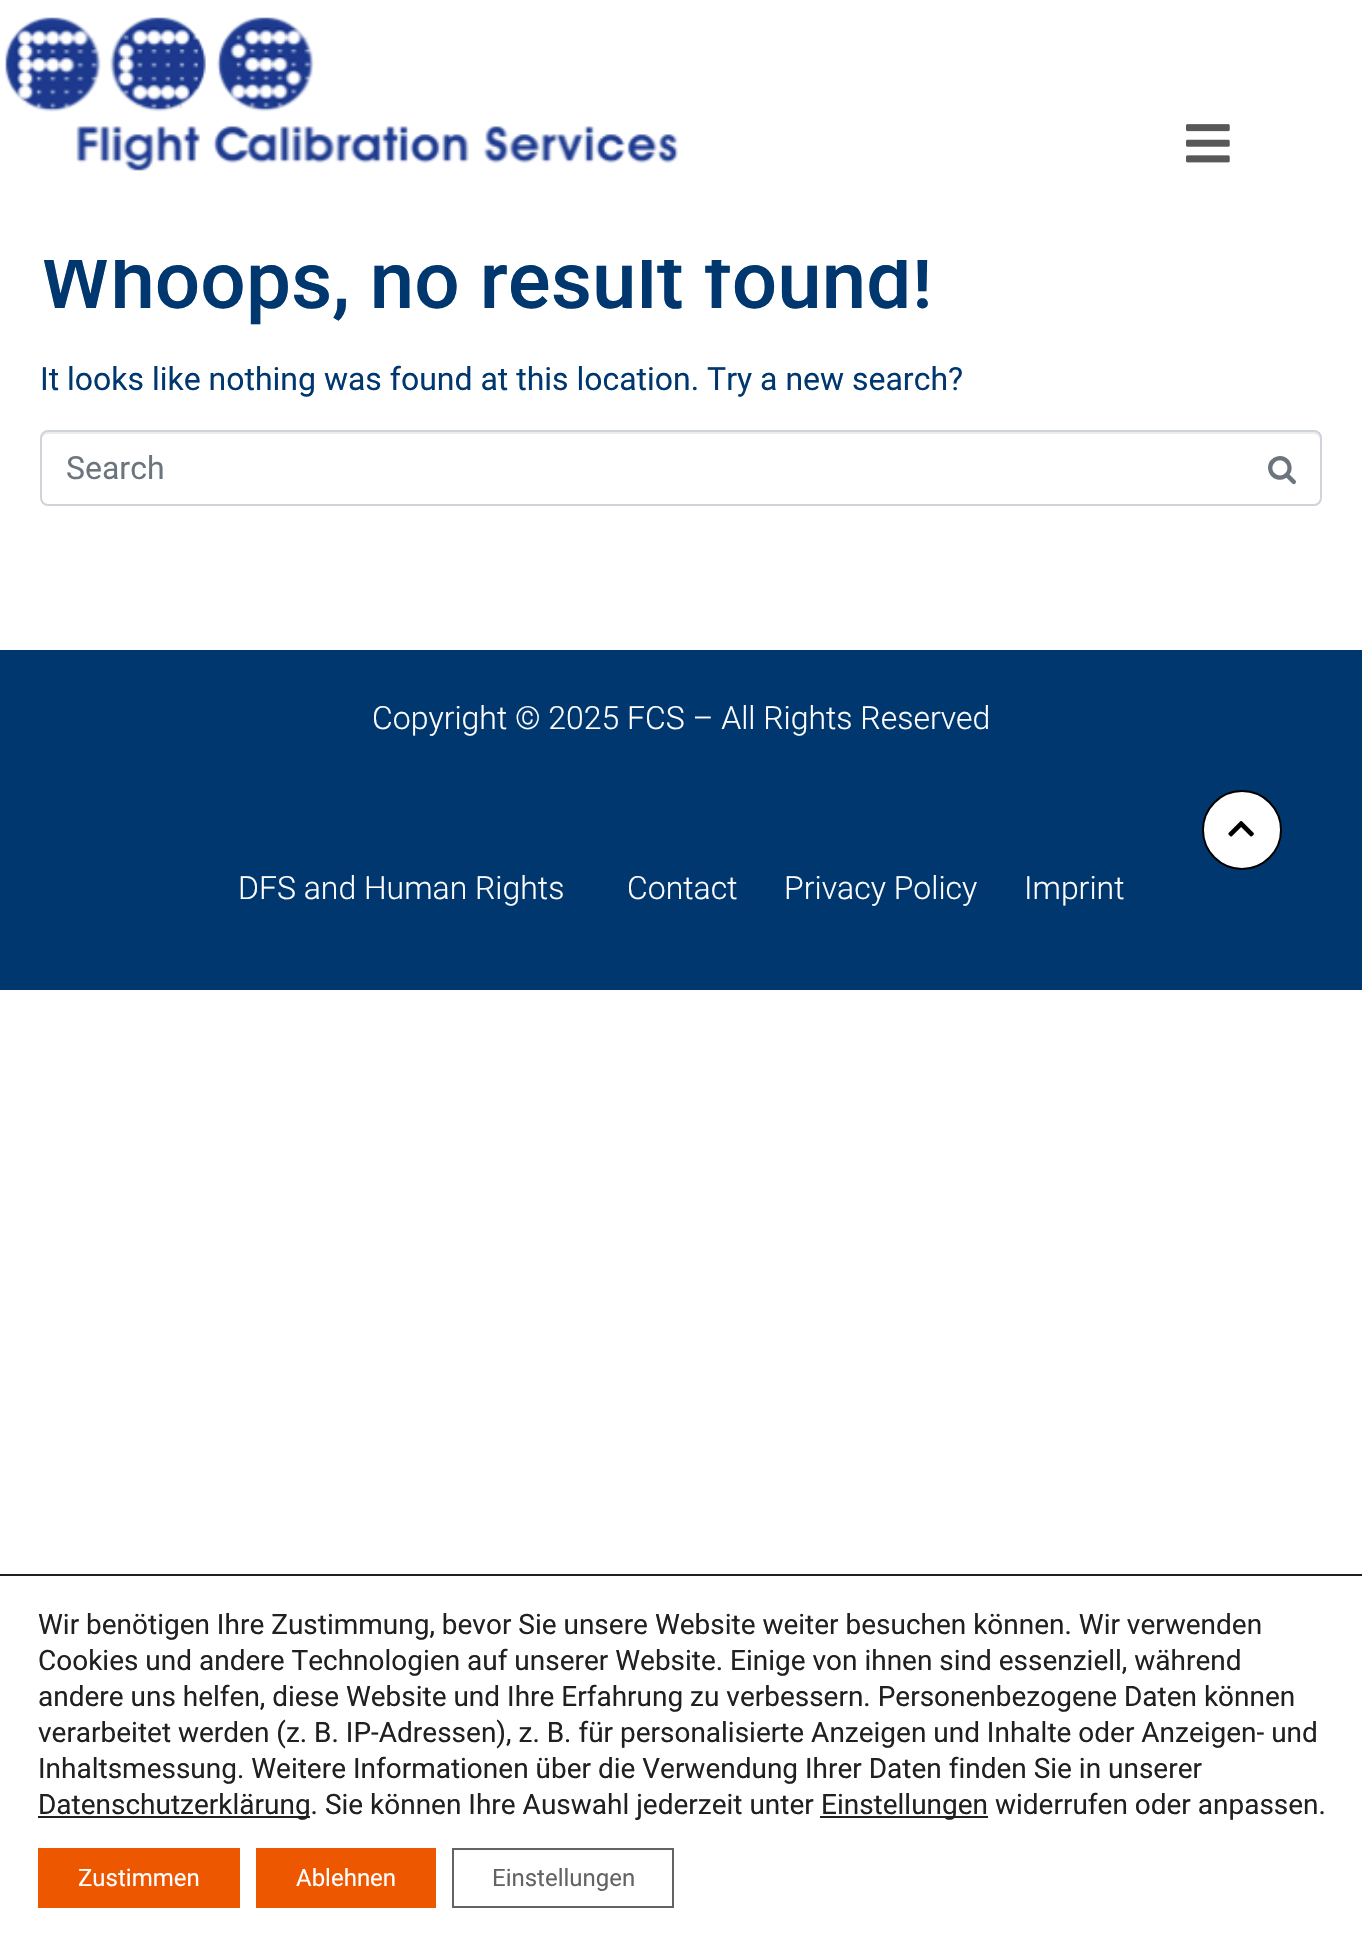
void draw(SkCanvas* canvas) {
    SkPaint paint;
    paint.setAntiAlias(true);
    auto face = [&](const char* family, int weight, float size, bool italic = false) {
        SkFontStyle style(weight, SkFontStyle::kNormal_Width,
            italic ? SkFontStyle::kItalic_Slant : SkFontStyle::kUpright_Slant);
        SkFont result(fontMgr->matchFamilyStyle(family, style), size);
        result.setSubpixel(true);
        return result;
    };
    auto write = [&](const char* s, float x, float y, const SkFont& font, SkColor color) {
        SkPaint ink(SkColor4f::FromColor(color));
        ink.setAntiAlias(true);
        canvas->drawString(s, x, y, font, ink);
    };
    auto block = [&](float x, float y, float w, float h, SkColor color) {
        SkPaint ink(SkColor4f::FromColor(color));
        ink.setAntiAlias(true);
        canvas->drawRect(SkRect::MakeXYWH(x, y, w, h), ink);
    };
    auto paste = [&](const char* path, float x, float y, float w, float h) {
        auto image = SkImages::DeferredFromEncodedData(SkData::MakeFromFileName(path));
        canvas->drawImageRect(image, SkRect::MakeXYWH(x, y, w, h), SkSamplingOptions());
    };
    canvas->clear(SK_ColorWHITE);
    auto kFont1 = face("Roboto", 500, 80);
    write("Whoops, no result found!", 40, 308, kFont1, SkColorSetRGB(0, 55, 110));
    block(41, 247, 887, 13, SK_ColorWHITE);
    paste("pic1.png", 5, 17, 673, 154);
    paste("pic2.png", 1186, 124, 44, 39);
    auto kFont2 = face("Roboto", 400, 32);
    write("It looks like nothing was found at this location. Try a new search?", 40, 390, kFont2, SkColorSetRGB(0, 55, 110));
    paint.setColor(SkColorSetRGB(236, 236, 236));
    canvas->drawPath(SkPathBuilder().moveTo(48, 434).lineTo(1314, 434).cubicTo(1317, 434, 1320, 437, 1320, 440).lineTo(1320, 438).cubicTo(1320, 435, 1317, 432, 1314, 432).lineTo(48, 432).cubicTo(45, 432, 42, 435, 42, 438).lineTo(42, 440).cubicTo(42, 437, 45, 434, 48, 434).close().detach(), paint);
    paint.setStyle(SkPaint::kStroke_Style);
    paint.setStrokeWidth(2);
    paint.setColor(SkColorSetRGB(206, 212, 218));
    canvas->drawRoundRect(SkRect::MakeXYWH(41, 431, 1280, 74), 7, 7, paint);
    write("Search", 66, 479, kFont2, SkColorSetRGB(108, 117, 125));
    paste("pic3.png", 1268, 456, 28, 29);
    block(0, 650, 1362, 340, SkColorSetRGB(0, 55, 110));
    auto kFont3 = face("Roboto", 300, 32);
    write("Copyright © 2025 FCS – All Rights Reserved", 372, 729, kFont3, SK_ColorWHITE);
    write("DFS and Human Rights", 238, 899, kFont3, SK_ColorWHITE);
    write("Contact", 627, 899, kFont3, SK_ColorWHITE);
    write("Privacy Policy", 784, 899, kFont3, SK_ColorWHITE);
    write("Imprint", 1024, 899, kFont3, SK_ColorWHITE);
    paint.setStyle(SkPaint::kFill_Style);
    paint.setColor(SK_ColorWHITE);
    canvas->drawCircle(1242, 830, 39, paint);
    paint.setStyle(SkPaint::kStroke_Style);
    paint.setColor(SK_ColorBLACK);
    canvas->drawCircle(1242, 830, 39, paint);
    paste("pic4.png", 1228, 821, 26, 16);
    block(0, 1574, 1362, 2, SkColorSetRGB(32, 32, 32));
    auto kFont4 = face("Roboto", 400, 28);
    write("Wir benötigen Ihre Zustimmung, bevor Sie unsere Website weiter besuchen können. Wir verwenden", 38, 1634, kFont4, SkColorSetRGB(32, 32, 32));
    write("Cookies und andere Technologien auf unserer Website. Einige von ihnen sind essenziell, während", 38, 1670, kFont4, SkColorSetRGB(32, 32, 32));
    write("andere uns helfen, diese Website und Ihre Erfahrung zu verbessern. Personenbezogene Daten können", 38, 1706, kFont4, SkColorSetRGB(32, 32, 32));
    write("verarbeitet werden (z. B. IP-Adressen), z. B. für personalisierte Anzeigen und Inhalte oder Anzeigen- und", 38, 1742, kFont4, SkColorSetRGB(32, 32, 32));
    write("Inhaltsmessung. Weitere Informationen über die Verwendung Ihrer Daten finden Sie in unserer", 38, 1778, kFont4, SkColorSetRGB(32, 32, 32));
    block(38, 1816, 272, 2, SkColorSetRGB(32, 32, 32));
    write("Datenschutzerklärung. Sie können Ihre Auswahl jederzeit unter", 38, 1814, kFont4, SkColorSetRGB(32, 32, 32));
    block(820, 1816, 168, 2, SkColorSetRGB(32, 32, 32));
    write("Einstellungen widerrufen oder anpassen.", 821, 1814, kFont4, SkColorSetRGB(32, 32, 32));
    block(38, 1848, 202, 60, SkColorSetRGB(237, 87, 0));
    auto kFont5 = face("Roboto", 400, 24);
    write("Zustimmen", 78, 1886, kFont5, SK_ColorWHITE);
    block(256, 1848, 180, 60, SkColorSetRGB(237, 87, 0));
    write("Ablehnen", 296, 1886, kFont5, SK_ColorWHITE);
    paint.setColor(SkColorSetRGB(99, 99, 99));
    canvas->drawRect(SkRect::MakeXYWH(453, 1849, 220, 58), paint);
    write("Einstellungen", 492, 1886, kFont5, SkColorSetRGB(99, 99, 99));
}
